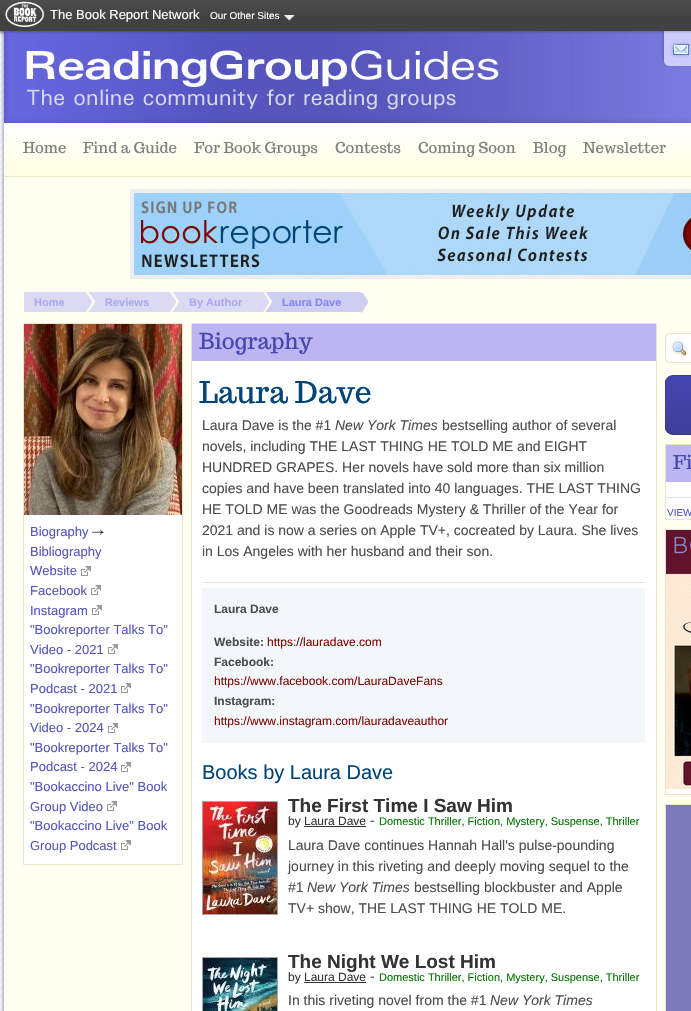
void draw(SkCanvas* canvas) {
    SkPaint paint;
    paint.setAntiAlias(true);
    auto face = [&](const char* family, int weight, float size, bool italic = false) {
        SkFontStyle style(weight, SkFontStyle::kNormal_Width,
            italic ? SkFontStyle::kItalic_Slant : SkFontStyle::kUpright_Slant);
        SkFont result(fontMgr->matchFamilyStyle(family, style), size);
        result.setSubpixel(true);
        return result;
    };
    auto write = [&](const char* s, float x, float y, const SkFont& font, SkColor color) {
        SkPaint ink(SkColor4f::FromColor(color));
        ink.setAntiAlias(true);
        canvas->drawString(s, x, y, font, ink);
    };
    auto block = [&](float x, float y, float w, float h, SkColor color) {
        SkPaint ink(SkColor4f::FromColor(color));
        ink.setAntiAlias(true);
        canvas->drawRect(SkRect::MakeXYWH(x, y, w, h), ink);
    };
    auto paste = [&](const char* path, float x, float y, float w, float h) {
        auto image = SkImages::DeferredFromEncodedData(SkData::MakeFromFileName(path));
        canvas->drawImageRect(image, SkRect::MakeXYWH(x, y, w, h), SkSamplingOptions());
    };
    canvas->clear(SK_ColorWHITE);
    paste("pic1.png", 0, 31, 4, 980);
    paste("pic2.png", 0, 0, 691, 36);
    paste("pic3.png", 5, 1, 40, 26);
    auto kFont1 = face("Liberation Sans", 400, 13);
    write("The Book Report Network", 50, 19, kFont1, SK_ColorWHITE);
    paste("pic4.png", 284, 15, 11, 6);
    auto kFont2 = face("Liberation Sans", 400, 10);
    write("Our Other Sites", 210, 19, kFont2, SK_ColorWHITE);
    paste("pic5.png", 1, 31, 690, 980);
    paste("pic6.png", 4, 31, 687, 92);
    paste("pic7.png", 26, 50, 473, 60);
    paste("pic8.png", 661, 31, 30, 36);
    paste("pic9.png", 4, 123, 687, 54);
    auto kFont3 = face("Trocchi", 400, 15);
    write("Home", 23, 153, kFont3, SkColorSetRGB(128, 128, 128));
    write("Find a Guide", 83, 153, kFont3, SkColorSetRGB(128, 128, 128));
    write("For Book Groups", 194, 153, kFont3, SkColorSetRGB(128, 128, 128));
    write("Contests", 335, 153, kFont3, SkColorSetRGB(128, 128, 128));
    write("Coming Soon", 418, 153, kFont3, SkColorSetRGB(128, 128, 128));
    write("Blog", 533, 153, kFont3, SkColorSetRGB(128, 128, 128));
    write("Newsletter", 583, 153, kFont3, SkColorSetRGB(128, 128, 128));
    paste("pic10.png", 130, 189, 561, 90);
    paste("pic11.png", 361, 293, 7, 20);
    block(24, 292, 61, 20, SkColorSetRGB(218, 218, 242));
    auto kFont4 = face("Liberation Sans", 700, 11);
    write("Home", 34, 306, kFont4, SkColorSetRGB(170, 170, 242));
    paste("pic12.png", 85, 292, 84, 20);
    write("Reviews", 105, 306, kFont4, SkColorSetRGB(170, 170, 242));
    paste("pic13.png", 169, 292, 93, 20);
    write("By Author", 189, 306, kFont4, SkColorSetRGB(170, 170, 242));
    paste("pic14.png", 262, 292, 99, 20);
    write("Laura Dave", 282, 306, kFont4, SkColorSetRGB(133, 133, 242));
    block(192, 361, 464, 650, SK_ColorWHITE);
    paint.setStyle(SkPaint::kStroke_Style);
    paint.setStrokeWidth(1);
    paint.setColor(SkColorSetRGB(230, 230, 200));
    canvas->drawRect(SkRect::MakeXYWH(191.5f, 323.5f, 465, 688), paint);
    block(192, 324, 464, 37, SkColorSetRGB(187, 182, 242));
    auto kFont5 = face("Trocchi", 400, 22);
    write("Biography", 199, 349, kFont5, SkColorSetRGB(71, 71, 178));
    auto kFont6 = face("Trocchi", 400, 30);
    write("Laura Dave", 199, 403, kFont6, SkColorSetRGB(0, 68, 122));
    block(202, 582, 444, 1, SkColorSetRGB(227, 227, 227));
    auto kFont7 = face("Liberation Sans", 400, 14);
    write("Laura Dave is the #1", 202, 430, kFont7, SkColorSetRGB(76, 76, 76));
    auto kFont8 = face("Liberation Sans", 400, 14, true);
    write("New York Times", 335, 430, kFont8, SkColorSetRGB(76, 76, 76));
    write("bestselling author of several", 442, 430, kFont7, SkColorSetRGB(76, 76, 76));
    write("novels, including THE LAST THING HE TOLD ME and EIGHT", 202, 451, kFont7, SkColorSetRGB(76, 76, 76));
    write("HUNDRED GRAPES. Her novels have sold more than six million", 202, 472, kFont7, SkColorSetRGB(76, 76, 76));
    write("copies and have been translated into 40 languages. THE LAST THING", 202, 493, kFont7, SkColorSetRGB(76, 76, 76));
    write("HE TOLD ME was the Goodreads Mystery & Thriller of the Year for", 202, 514, kFont7, SkColorSetRGB(76, 76, 76));
    write("2021 and is now a series on Apple TV+, cocreated by Laura. She lives", 202, 535, kFont7, SkColorSetRGB(76, 76, 76));
    write("in Los Angeles with her husband and their son.", 202, 556, kFont7, SkColorSetRGB(76, 76, 76));
    block(202, 588, 443, 155, SkColorSetRGB(243, 247, 251));
    auto kFont9 = face("Liberation Sans", 700, 12);
    write("Laura Dave", 214, 613, kFont9, SkColorSetRGB(76, 76, 76));
    write("Website:", 214, 646, kFont9, SkColorSetRGB(76, 76, 76));
    auto kFont10 = face("Liberation Sans", 400, 12);
    write("https://lauradave.com", 267, 646, kFont10, SkColorSetRGB(125, 9, 0));
    write("Facebook:", 214, 666, kFont9, SkColorSetRGB(76, 76, 76));
    write("https://www.facebook.com/LauraDaveFans", 214, 685, kFont10, SkColorSetRGB(125, 9, 0));
    write("Instagram:", 214, 705, kFont9, SkColorSetRGB(76, 76, 76));
    write("https://www.instagram.com/lauradaveauthor", 214, 725, kFont10, SkColorSetRGB(125, 9, 0));
    auto kFont11 = face("Liberation Sans", 400, 20);
    write("Books by Laura Dave", 202, 779, kFont11, SkColorSetRGB(0, 68, 122));
    paint.setColor(SkColorSetRGB(166, 166, 166));
    canvas->drawRect(SkRect::MakeXYWH(202.5f, 801.5f, 75, 113), paint);
    paste("pic15.png", 203, 802, 74, 112);
    auto kFont12 = face("Liberation Sans", 700, 19);
    write("The First Time I Saw Him", 288, 812, kFont12, SkColorSetRGB(51, 51, 51));
    write("by Laura Dave", 288, 825, kFont10, SkColorSetRGB(51, 51, 51));
    block(304, 826, 62, 1, SkColorSetRGB(51, 51, 51));
    write("-", 370, 825, kFont7, SkColorSetRGB(76, 76, 76));
    auto kFont13 = face("Liberation Sans", 400, 11);
    write("Domestic Thriller, Fiction, Mystery, Suspense, Thriller", 379, 825, kFont13, SkColorSetRGB(2, 117, 0));
    write("Laura Dave continues Hannah Hall's pulse-pounding", 288, 850, kFont7, SkColorSetRGB(76, 76, 76));
    write("journey in this riveting and deeply moving sequel to the", 288, 871, kFont7, SkColorSetRGB(76, 76, 76));
    write("#1", 288, 892, kFont7, SkColorSetRGB(76, 76, 76));
    write("New York Times", 307, 892, kFont8, SkColorSetRGB(76, 76, 76));
    write("bestselling blockbuster and Apple", 414, 892, kFont7, SkColorSetRGB(76, 76, 76));
    write("TV+ show, THE LAST THING HE TOLD ME.", 288, 913, kFont7, SkColorSetRGB(76, 76, 76));
    canvas->drawRect(SkRect::MakeXYWH(202.5f, 957.5f, 75, 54), paint);
    paste("pic16.png", 203, 958, 74, 53);
    write("The Night We Lost Him", 288, 968, kFont12, SkColorSetRGB(51, 51, 51));
    write("by Laura Dave", 288, 981, kFont10, SkColorSetRGB(51, 51, 51));
    block(304, 982, 62, 1, SkColorSetRGB(51, 51, 51));
    write("-", 370, 981, kFont7, SkColorSetRGB(76, 76, 76));
    write("Domestic Thriller, Fiction, Mystery, Suspense, Thriller", 379, 981, kFont13, SkColorSetRGB(2, 117, 0));
    write("In this riveting novel from the #1", 288, 1005, kFont7, SkColorSetRGB(76, 76, 76));
    write("New York Times", 490, 1005, kFont8, SkColorSetRGB(76, 76, 76));
    paste("pic17.png", 665, 333, 26, 30);
    paste("pic18.png", 665, 375, 26, 60);
    block(666, 482, 25, 37, SK_ColorWHITE);
    paint.setColor(SkColorSetRGB(230, 230, 200));
    canvas->drawRect(SkRect::MakeXYWH(665.5f, 444.5f, 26, 75), paint);
    block(666, 445, 25, 37, SkColorSetRGB(187, 182, 242));
    auto kFont14 = face("Trocchi", 400, 19);
    write("Fi", 673, 469, kFont14, SkColorSetRGB(71, 71, 178));
    block(666, 497, 25, 1, SkColorSetRGB(227, 227, 227));
    write("VIEW", 667, 516, kFont2, SkColorSetRGB(85, 85, 187));
    block(666, 789, 25, 5, SK_ColorWHITE);
    canvas->drawRect(SkRect::MakeXYWH(665.5f, 529.5f, 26, 265), paint);
    paste("pic19.png", 666, 530, 25, 259);
    canvas->drawRect(SkRect::MakeXYWH(665.5f, 804.5f, 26, 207), paint);
    block(666, 805, 25, 206, SkColorSetRGB(124, 122, 185));
    block(24, 515, 158, 349, SK_ColorWHITE);
    canvas->drawRect(SkRect::MakeXYWH(23.5f, 323.5f, 159, 541), paint);
    paste("pic20.png", 24, 324, 158, 191);
    write("Biography", 30, 536, kFont1, SkColorSetRGB(85, 85, 187));
    paste("pic21.png", 92, 529, 12, 6);
    write("Bibliography", 30, 556, kFont1, SkColorSetRGB(85, 85, 187));
    write("Website", 30, 575, kFont1, SkColorSetRGB(85, 85, 187));
    paste("pic22.png", 81, 566, 10, 10);
    write("Facebook", 30, 595, kFont1, SkColorSetRGB(85, 85, 187));
    paste("pic22.png", 91, 585, 10, 10);
    write("Instagram", 30, 615, kFont1, SkColorSetRGB(85, 85, 187));
    paste("pic22.png", 92, 605, 10, 10);
    write("\"Bookreporter Talks To\"", 30, 634, kFont1, SkColorSetRGB(85, 85, 187));
    write("Video - 2021", 30, 654, kFont1, SkColorSetRGB(85, 85, 187));
    paste("pic22.png", 108, 644, 10, 10);
    write("\"Bookreporter Talks To\"", 30, 673, kFont1, SkColorSetRGB(85, 85, 187));
    write("Podcast - 2021", 30, 693, kFont1, SkColorSetRGB(85, 85, 187));
    paste("pic22.png", 121, 683, 10, 10);
    write("\"Bookreporter Talks To\"", 30, 713, kFont1, SkColorSetRGB(85, 85, 187));
    write("Video - 2024", 30, 732, kFont1, SkColorSetRGB(85, 85, 187));
    paste("pic22.png", 108, 723, 10, 10);
    write("\"Bookreporter Talks To\"", 30, 752, kFont1, SkColorSetRGB(85, 85, 187));
    write("Podcast - 2024", 30, 771, kFont1, SkColorSetRGB(85, 85, 187));
    paste("pic22.png", 121, 762, 10, 10);
    write("\"Bookaccino Live\" Book", 30, 791, kFont1, SkColorSetRGB(85, 85, 187));
    write("Group Video", 30, 811, kFont1, SkColorSetRGB(85, 85, 187));
    paste("pic22.png", 107, 801, 10, 10);
    write("\"Bookaccino Live\" Book", 30, 830, kFont1, SkColorSetRGB(85, 85, 187));
    write("Group Podcast", 30, 850, kFont1, SkColorSetRGB(85, 85, 187));
    paste("pic22.png", 121, 840, 10, 10);
}
